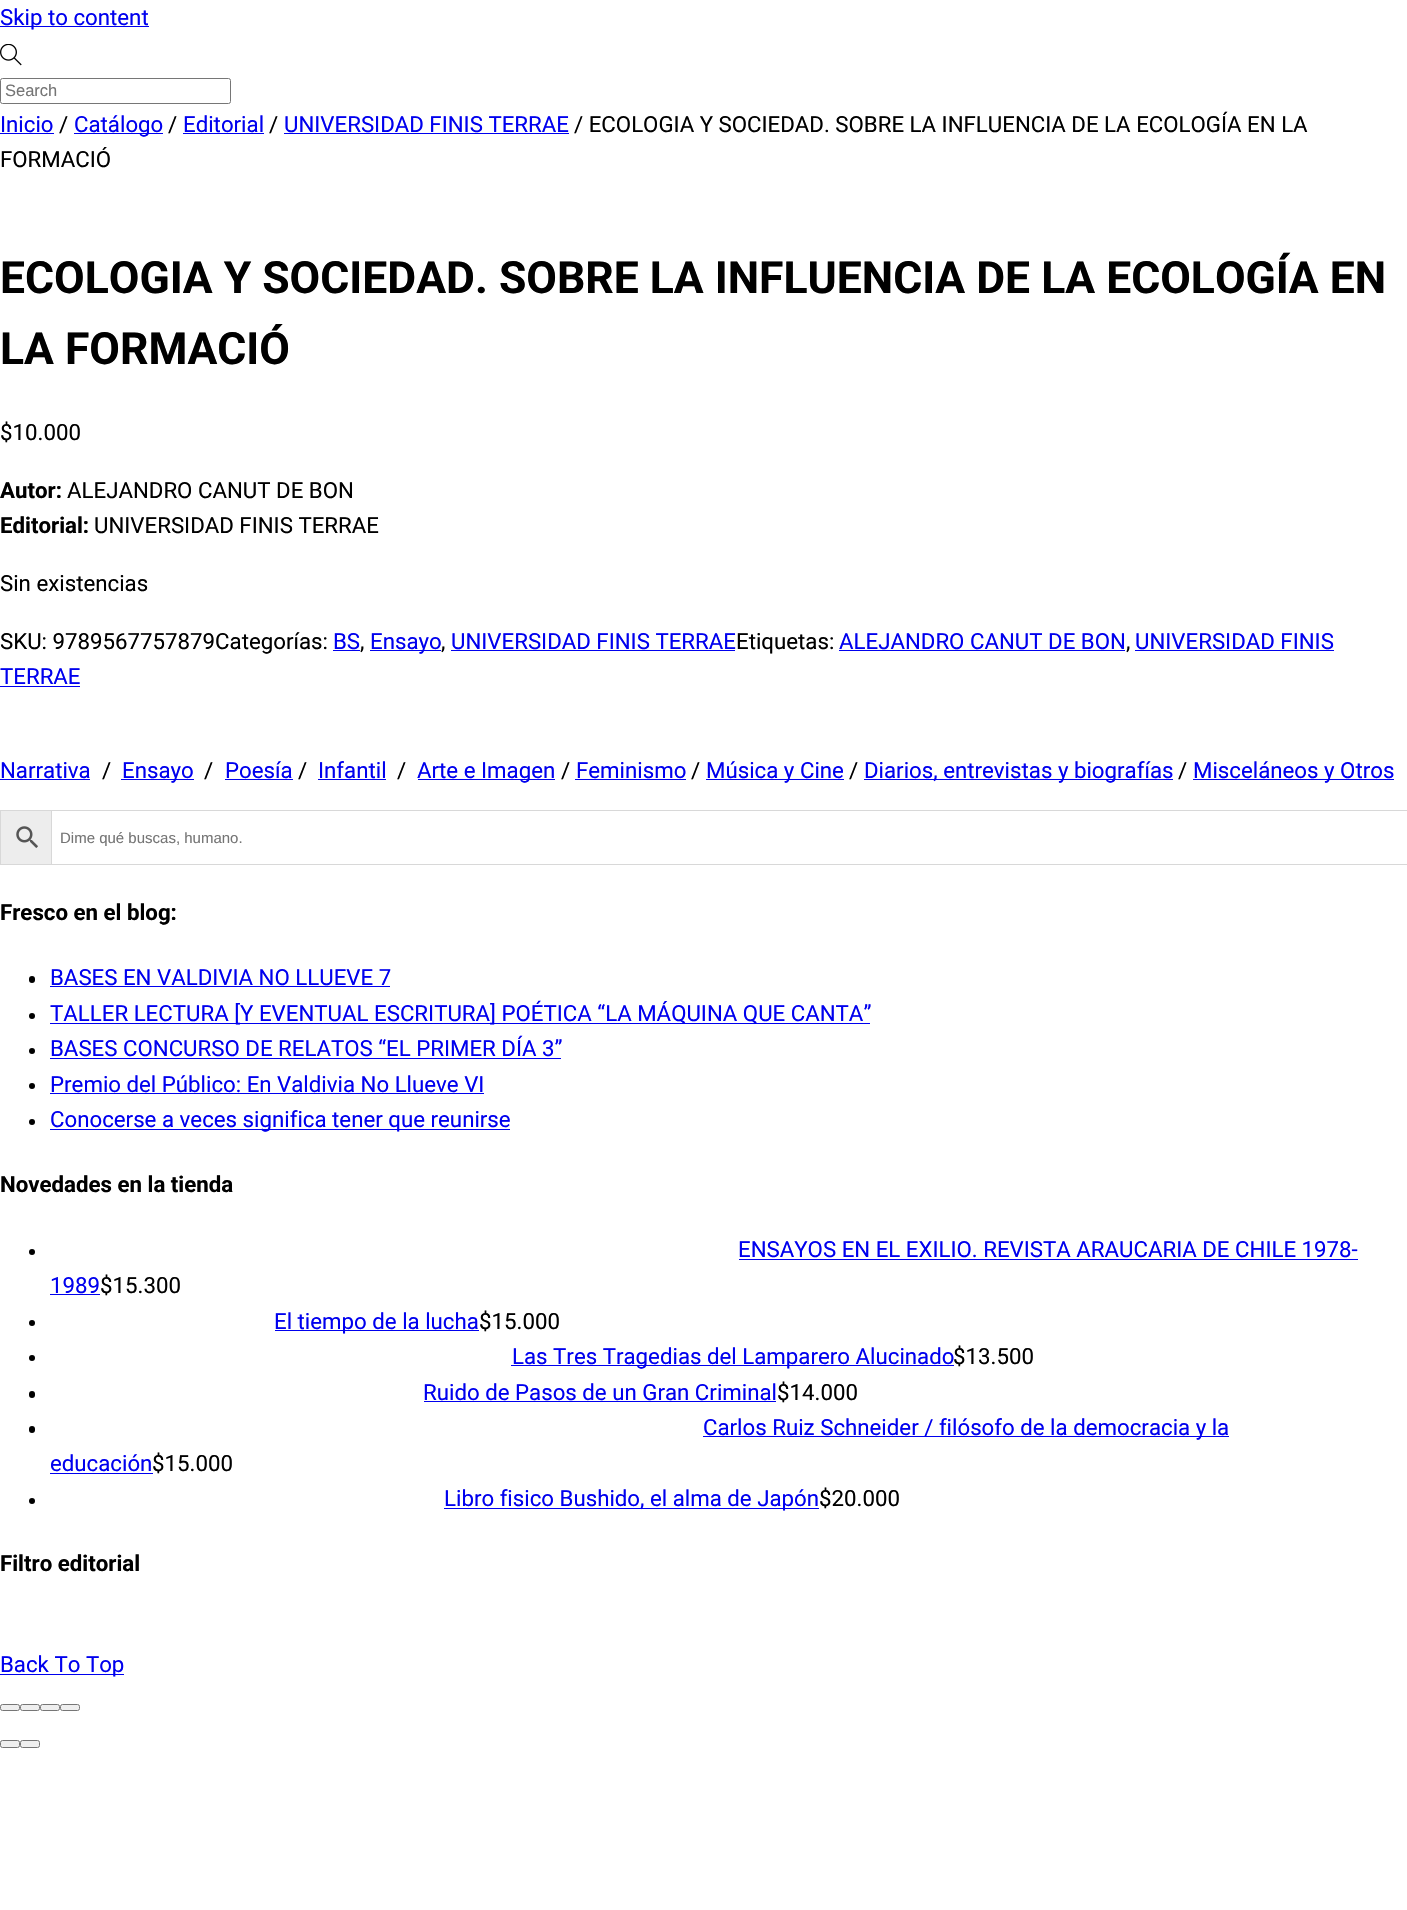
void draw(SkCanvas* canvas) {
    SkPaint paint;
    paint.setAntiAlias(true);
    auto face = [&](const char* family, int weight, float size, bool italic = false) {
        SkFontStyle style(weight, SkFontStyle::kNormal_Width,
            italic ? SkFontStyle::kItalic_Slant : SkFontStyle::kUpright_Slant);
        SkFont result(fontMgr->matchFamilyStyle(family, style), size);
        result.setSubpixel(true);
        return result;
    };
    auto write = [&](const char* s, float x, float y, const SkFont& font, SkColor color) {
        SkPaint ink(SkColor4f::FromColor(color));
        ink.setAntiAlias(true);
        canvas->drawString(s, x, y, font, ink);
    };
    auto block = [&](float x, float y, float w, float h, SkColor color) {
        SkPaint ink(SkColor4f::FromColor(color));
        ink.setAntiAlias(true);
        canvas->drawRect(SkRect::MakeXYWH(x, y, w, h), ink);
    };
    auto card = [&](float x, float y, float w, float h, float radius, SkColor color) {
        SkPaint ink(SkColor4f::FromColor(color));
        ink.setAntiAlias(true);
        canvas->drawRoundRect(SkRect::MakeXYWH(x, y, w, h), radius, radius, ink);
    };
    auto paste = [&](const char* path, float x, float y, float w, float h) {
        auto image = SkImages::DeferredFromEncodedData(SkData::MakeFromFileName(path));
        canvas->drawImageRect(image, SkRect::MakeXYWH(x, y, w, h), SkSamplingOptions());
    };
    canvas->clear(SK_ColorWHITE);
    block(0, 26, 149, 1, SkColorSetRGB(0, 0, 238));
    auto kFont1 = face("Roboto", 400, 22.25f);
    write("Skip to content", 0, 25, kFont1, SkColorSetRGB(0, 0, 238));
    paste("pic1.png", 0, 44, 22, 22);
    paint.setStyle(SkPaint::kStroke_Style);
    paint.setStrokeWidth(1);
    paint.setColor(SkColorSetRGB(118, 118, 118));
    canvas->drawRoundRect(SkRect::MakeXYWH(0.5f, 78.5f, 230, 25), 2, 2, paint);
    auto kFont2 = face("Liberation Sans", 400, 16.5f);
    write("Search", 5, 96, kFont2, SkColorSetRGB(117, 117, 117));
    write("Inicio", 0, 132, kFont1, SkColorSetRGB(0, 0, 238));
    block(0, 133, 54, 1, SkColorSetRGB(0, 0, 238));
    write("/", 59, 132, kFont1, SK_ColorBLACK);
    block(74, 133, 89, 1, SkColorSetRGB(0, 0, 238));
    write("Catálogo", 74, 132, kFont1, SkColorSetRGB(0, 0, 238));
    write("/", 168, 132, kFont1, SK_ColorBLACK);
    write("Editorial", 183, 132, kFont1, SkColorSetRGB(0, 0, 238));
    block(183, 133, 81, 1, SkColorSetRGB(0, 0, 238));
    write("/", 269, 132, kFont1, SK_ColorBLACK);
    write("UNIVERSIDAD FINIS TERRAE", 284, 132, kFont1, SkColorSetRGB(0, 0, 238));
    block(284, 133, 285, 1, SkColorSetRGB(0, 0, 238));
    write("/ ECOLOGIA Y SOCIEDAD. SOBRE LA INFLUENCIA DE LA ECOLOGÍA EN LA", 574, 132, kFont1, SK_ColorBLACK);
    write("FORMACIÓ", 0, 167, kFont1, SK_ColorBLACK);
    auto kFont3 = face("Roboto", 700, 44.45f);
    write("ECOLOGIA Y SOCIEDAD. SOBRE LA INFLUENCIA DE LA ECOLOGÍA EN", 0, 293, kFont3, SK_ColorBLACK);
    write("LA FORMACIÓ", 0, 364, kFont3, SK_ColorBLACK);
    write("$10.000", 0, 440, kFont1, SK_ColorBLACK);
    auto kFont4 = face("Roboto", 700, 22.25f);
    write("Autor:", 0, 498, kFont4, SK_ColorBLACK);
    write("ALEJANDRO CANUT DE BON", 67, 498, kFont1, SK_ColorBLACK);
    write("Editorial:", 0, 533, kFont4, SK_ColorBLACK);
    write("UNIVERSIDAD FINIS TERRAE", 94, 533, kFont1, SK_ColorBLACK);
    write("Sin existencias", 0, 591, kFont1, SK_ColorBLACK);
    write("SKU: 9789567757879Categorías:", 0, 649, kFont1, SK_ColorBLACK);
    write("BS", 333, 649, kFont1, SkColorSetRGB(0, 0, 238));
    write(",", 360, 649, kFont1, SK_ColorBLACK);
    block(333, 650, 27, 1, SkColorSetRGB(0, 0, 238));
    block(370, 650, 71, 1, SkColorSetRGB(0, 0, 238));
    write("Ensayo", 370, 649, kFont1, SkColorSetRGB(0, 0, 238));
    write(",", 441, 649, kFont1, SK_ColorBLACK);
    block(451, 650, 284, 1, SkColorSetRGB(0, 0, 238));
    write("UNIVERSIDAD FINIS TERRAE", 451, 649, kFont1, SkColorSetRGB(0, 0, 238));
    write("Etiquetas:", 736, 649, kFont1, SK_ColorBLACK);
    write("ALEJANDRO CANUT DE BON", 839, 649, kFont1, SkColorSetRGB(0, 0, 238));
    write(",", 1126, 649, kFont1, SK_ColorBLACK);
    block(839, 650, 286, 1, SkColorSetRGB(0, 0, 238));
    block(1135, 650, 199, 1, SkColorSetRGB(0, 0, 238));
    write("UNIVERSIDAD FINIS", 1135, 649, kFont1, SkColorSetRGB(0, 0, 238));
    write("TERRAE", 0, 684, kFont1, SkColorSetRGB(0, 0, 238));
    block(0, 686, 80, 1, SkColorSetRGB(0, 0, 238));
    write("Narrativa", 0, 778, kFont1, SkColorSetRGB(0, 0, 238));
    block(0, 779, 90, 1, SkColorSetRGB(0, 0, 238));
    write("/", 102, 778, kFont1, SK_ColorBLACK);
    block(121, 779, 73, 1, SkColorSetRGB(0, 0, 238));
    write("Ensayo", 122, 778, kFont1, SkColorSetRGB(0, 0, 238));
    write("/", 204, 778, kFont1, SK_ColorBLACK);
    write("Poesía", 225, 778, kFont1, SkColorSetRGB(0, 0, 238));
    block(225, 779, 68, 1, SkColorSetRGB(0, 0, 238));
    write("/", 298, 778, kFont1, SK_ColorBLACK);
    write("Infantil", 318, 778, kFont1, SkColorSetRGB(0, 0, 238));
    block(318, 779, 68, 1, SkColorSetRGB(0, 0, 238));
    write("/", 397, 778, kFont1, SK_ColorBLACK);
    block(418, 779, 137, 1, SkColorSetRGB(0, 0, 238));
    write("Arte e Imagen", 417, 778, kFont1, SkColorSetRGB(0, 0, 238));
    write("/", 561, 778, kFont1, SK_ColorBLACK);
    write("Feminismo", 576, 778, kFont1, SkColorSetRGB(0, 0, 238));
    block(575, 779, 111, 1, SkColorSetRGB(0, 0, 238));
    write("/", 691, 778, kFont1, SK_ColorBLACK);
    block(706, 779, 138, 1, SkColorSetRGB(0, 0, 238));
    write("Música y Cine", 706, 778, kFont1, SkColorSetRGB(0, 0, 238));
    write("/", 849, 778, kFont1, SK_ColorBLACK);
    block(864, 779, 309, 1, SkColorSetRGB(0, 0, 238));
    write("Diarios, entrevistas y biografías", 864, 778, kFont1, SkColorSetRGB(0, 0, 238));
    write("/", 1178, 778, kFont1, SK_ColorBLACK);
    block(1193, 779, 201, 1, SkColorSetRGB(0, 0, 238));
    write("Misceláneos y Otros", 1193, 778, kFont1, SkColorSetRGB(0, 0, 238));
    block(1, 811, 50, 53, SkColorSetRGB(237, 237, 237));
    paint.setColor(SkColorSetRGB(216, 216, 216));
    canvas->drawRect(SkRect::MakeXYWH(0.5f, 810.5f, 52, 54), paint);
    paste("pic2.png", 16, 826, 22, 22);
    block(52, 811, 1, 53, SK_ColorWHITE);
    canvas->drawRect(SkRect::MakeXYWH(51.5f, 810.5f, 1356, 54), paint);
    auto kFont5 = face("Liberation Sans", 400, 15);
    write("Dime qué buscas, humano.", 60, 843, kFont5, SkColorSetRGB(117, 117, 117));
    write("Fresco en el blog:", 0, 920, kFont4, SK_ColorBLACK);
    card(29, 976, 6, 7, 3, SK_ColorBLACK);
    write("BASES EN VALDIVIA NO LLUEVE 7", 50, 985, kFont1, SkColorSetRGB(0, 0, 238));
    block(50, 986, 340, 1, SkColorSetRGB(0, 0, 238));
    paint.setStyle(SkPaint::kFill_Style);
    paint.setColor(SK_ColorBLACK);
    canvas->drawCircle(32, 1016, 3, paint);
    block(50, 1023, 820, 1, SkColorSetRGB(0, 0, 238));
    write("TALLER LECTURA [Y EVENTUAL ESCRITURA] POÉTICA “LA MÁQUINA QUE CANTA”", 50, 1021, kFont1, SkColorSetRGB(0, 0, 238));
    canvas->drawCircle(32, 1051, 3, paint);
    write("BASES CONCURSO DE RELATOS “EL PRIMER DÍA 3”", 50, 1056, kFont1, SkColorSetRGB(0, 0, 238));
    block(50, 1058, 511, 1, SkColorSetRGB(0, 0, 238));
    canvas->drawCircle(32, 1086, 3, paint);
    write("Premio del Público: En Valdivia No Llueve VI", 50, 1092, kFont1, SkColorSetRGB(0, 0, 238));
    block(50, 1093, 434, 1, SkColorSetRGB(0, 0, 238));
    canvas->drawCircle(32, 1122, 3, paint);
    block(50, 1129, 460, 1, SkColorSetRGB(0, 0, 238));
    write("Conocerse a veces significa tener que reunirse", 50, 1127, kFont1, SkColorSetRGB(0, 0, 238));
    write("Novedades en la tienda", 0, 1192, kFont4, SK_ColorBLACK);
    canvas->drawCircle(32, 1252, 3, paint);
    write("ENSAYOS EN EL EXILIO. REVISTA ARAUCARIA DE CHILE 1978-", 738, 1257, kFont1, SkColorSetRGB(0, 0, 238));
    block(739, 1259, 619, 1, SkColorSetRGB(0, 0, 238));
    write("1989", 50, 1293, kFont1, SkColorSetRGB(0, 0, 238));
    block(50, 1294, 50, 1, SkColorSetRGB(0, 0, 238));
    write("$15.300", 100, 1293, kFont1, SK_ColorBLACK);
    canvas->drawCircle(32, 1323, 3, paint);
    block(275, 1330, 204, 1, SkColorSetRGB(0, 0, 238));
    write("El tiempo de la lucha", 274, 1329, kFont1, SkColorSetRGB(0, 0, 238));
    write("$15.000", 479, 1329, kFont1, SK_ColorBLACK);
    canvas->drawCircle(32, 1358, 3, paint);
    block(511, 1365, 443, 1, SkColorSetRGB(0, 0, 238));
    write("Las Tres Tragedias del Lamparero Alucinado", 512, 1364, kFont1, SkColorSetRGB(0, 0, 238));
    write("$13.500", 953, 1364, kFont1, SK_ColorBLACK);
    card(29, 1391, 6, 7, 3, SK_ColorBLACK);
    write("Ruido de Pasos de un Gran Criminal", 423, 1400, kFont1, SkColorSetRGB(0, 0, 238));
    block(424, 1401, 352, 1, SkColorSetRGB(0, 0, 238));
    write("$14.000", 777, 1400, kFont1, SK_ColorBLACK);
    card(29, 1426, 6, 7, 3, SK_ColorBLACK);
    block(703, 1436, 526, 1, SkColorSetRGB(0, 0, 238));
    write("Carlos Ruiz Schneider / filósofo de la democracia y la", 703, 1435, kFont1, SkColorSetRGB(0, 0, 238));
    write("educación", 50, 1471, kFont1, SkColorSetRGB(0, 0, 238));
    block(50, 1473, 103, 1, SkColorSetRGB(0, 0, 238));
    write("$15.000", 152, 1471, kFont1, SK_ColorBLACK);
    canvas->drawCircle(32, 1501, 3, paint);
    block(444, 1508, 375, 1, SkColorSetRGB(0, 0, 238));
    write("Libro fisico Bushido, el alma de Japón", 444, 1506, kFont1, SkColorSetRGB(0, 0, 238));
    write("$20.000", 819, 1506, kFont1, SK_ColorBLACK);
    write("Filtro editorial", 0, 1571, kFont4, SK_ColorBLACK);
    block(0, 1674, 124, 1, SkColorSetRGB(0, 0, 238));
    write("Back To Top", 0, 1672, kFont1, SkColorSetRGB(0, 0, 238));
    paint.setColor(SkColorSetRGB(239, 239, 239));
    canvas->drawRoundRect(SkRect::MakeXYWH(0.5f, 1704.5f, 19, 6), 2, 2, paint);
    paint.setStyle(SkPaint::kStroke_Style);
    paint.setColor(SkColorSetRGB(118, 118, 118));
    canvas->drawRoundRect(SkRect::MakeXYWH(0.5f, 1704.5f, 19, 6), 2, 2, paint);
    paint.setStyle(SkPaint::kFill_Style);
    paint.setColor(SkColorSetRGB(239, 239, 239));
    canvas->drawRoundRect(SkRect::MakeXYWH(20.5f, 1704.5f, 19, 6), 2, 2, paint);
    paint.setStyle(SkPaint::kStroke_Style);
    paint.setColor(SkColorSetRGB(118, 118, 118));
    canvas->drawRoundRect(SkRect::MakeXYWH(20.5f, 1704.5f, 19, 6), 2, 2, paint);
    paint.setStyle(SkPaint::kFill_Style);
    paint.setColor(SkColorSetRGB(239, 239, 239));
    canvas->drawRoundRect(SkRect::MakeXYWH(40.5f, 1704.5f, 19, 6), 2, 2, paint);
    paint.setStyle(SkPaint::kStroke_Style);
    paint.setColor(SkColorSetRGB(118, 118, 118));
    canvas->drawRoundRect(SkRect::MakeXYWH(40.5f, 1704.5f, 19, 6), 2, 2, paint);
    paint.setStyle(SkPaint::kFill_Style);
    paint.setColor(SkColorSetRGB(239, 239, 239));
    canvas->drawRoundRect(SkRect::MakeXYWH(60.5f, 1704.5f, 19, 6), 2, 2, paint);
    paint.setStyle(SkPaint::kStroke_Style);
    paint.setColor(SkColorSetRGB(118, 118, 118));
    canvas->drawRoundRect(SkRect::MakeXYWH(60.5f, 1704.5f, 19, 6), 2, 2, paint);
    paint.setStyle(SkPaint::kFill_Style);
    paint.setColor(SkColorSetRGB(239, 239, 239));
    canvas->drawRoundRect(SkRect::MakeXYWH(0.5f, 1740.5f, 19, 7), 2, 2, paint);
    paint.setStyle(SkPaint::kStroke_Style);
    paint.setColor(SkColorSetRGB(118, 118, 118));
    canvas->drawRoundRect(SkRect::MakeXYWH(0.5f, 1740.5f, 19, 7), 2, 2, paint);
    paint.setStyle(SkPaint::kFill_Style);
    paint.setColor(SkColorSetRGB(239, 239, 239));
    canvas->drawRoundRect(SkRect::MakeXYWH(20.5f, 1740.5f, 19, 7), 2, 2, paint);
    paint.setStyle(SkPaint::kStroke_Style);
    paint.setColor(SkColorSetRGB(118, 118, 118));
    canvas->drawRoundRect(SkRect::MakeXYWH(20.5f, 1740.5f, 19, 7), 2, 2, paint);
}
